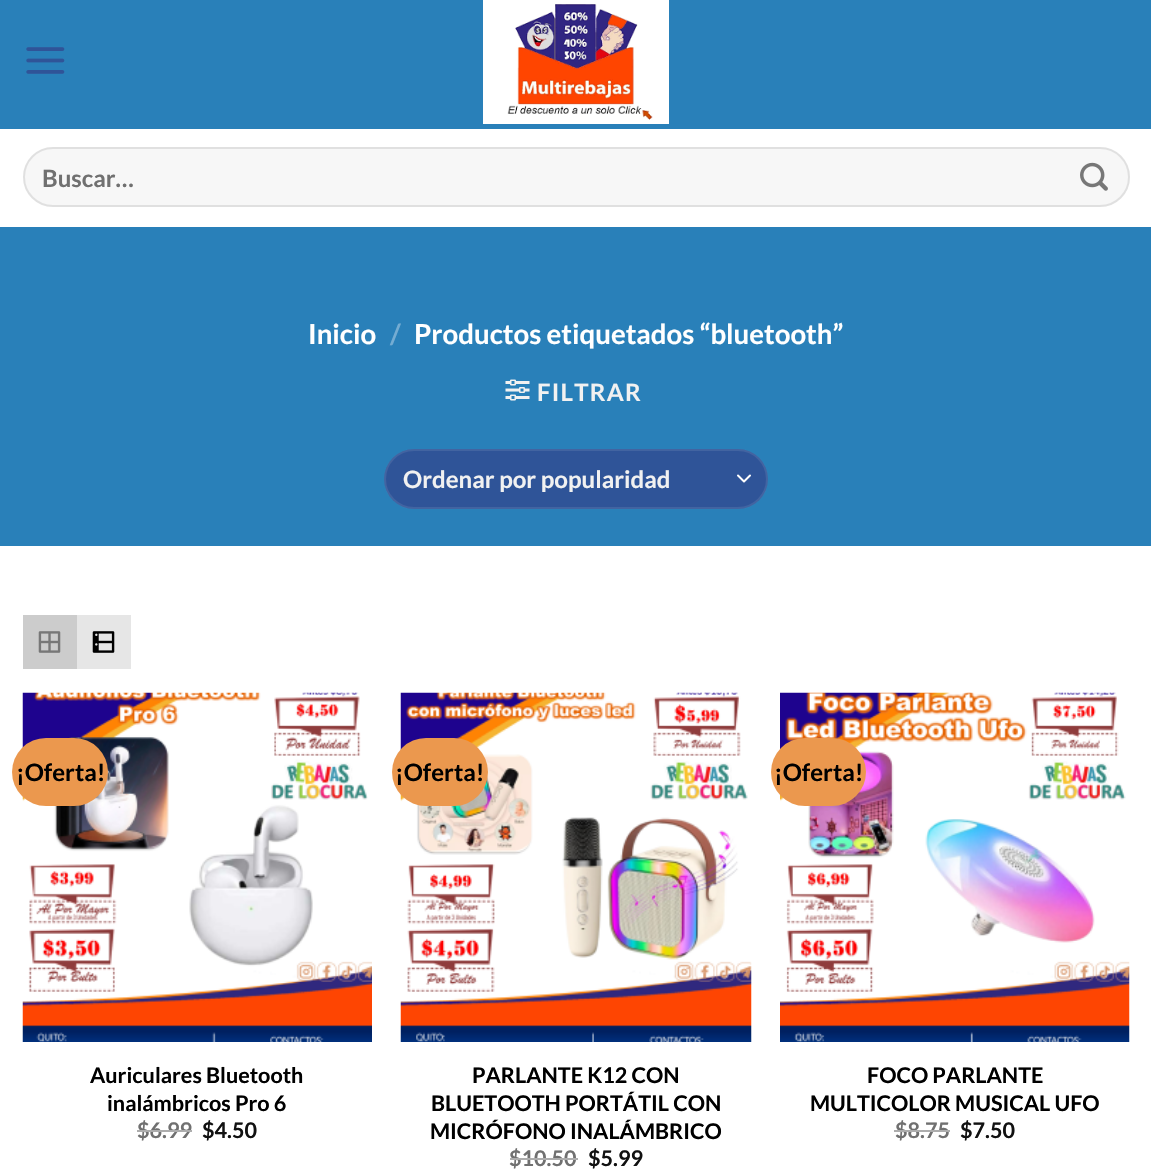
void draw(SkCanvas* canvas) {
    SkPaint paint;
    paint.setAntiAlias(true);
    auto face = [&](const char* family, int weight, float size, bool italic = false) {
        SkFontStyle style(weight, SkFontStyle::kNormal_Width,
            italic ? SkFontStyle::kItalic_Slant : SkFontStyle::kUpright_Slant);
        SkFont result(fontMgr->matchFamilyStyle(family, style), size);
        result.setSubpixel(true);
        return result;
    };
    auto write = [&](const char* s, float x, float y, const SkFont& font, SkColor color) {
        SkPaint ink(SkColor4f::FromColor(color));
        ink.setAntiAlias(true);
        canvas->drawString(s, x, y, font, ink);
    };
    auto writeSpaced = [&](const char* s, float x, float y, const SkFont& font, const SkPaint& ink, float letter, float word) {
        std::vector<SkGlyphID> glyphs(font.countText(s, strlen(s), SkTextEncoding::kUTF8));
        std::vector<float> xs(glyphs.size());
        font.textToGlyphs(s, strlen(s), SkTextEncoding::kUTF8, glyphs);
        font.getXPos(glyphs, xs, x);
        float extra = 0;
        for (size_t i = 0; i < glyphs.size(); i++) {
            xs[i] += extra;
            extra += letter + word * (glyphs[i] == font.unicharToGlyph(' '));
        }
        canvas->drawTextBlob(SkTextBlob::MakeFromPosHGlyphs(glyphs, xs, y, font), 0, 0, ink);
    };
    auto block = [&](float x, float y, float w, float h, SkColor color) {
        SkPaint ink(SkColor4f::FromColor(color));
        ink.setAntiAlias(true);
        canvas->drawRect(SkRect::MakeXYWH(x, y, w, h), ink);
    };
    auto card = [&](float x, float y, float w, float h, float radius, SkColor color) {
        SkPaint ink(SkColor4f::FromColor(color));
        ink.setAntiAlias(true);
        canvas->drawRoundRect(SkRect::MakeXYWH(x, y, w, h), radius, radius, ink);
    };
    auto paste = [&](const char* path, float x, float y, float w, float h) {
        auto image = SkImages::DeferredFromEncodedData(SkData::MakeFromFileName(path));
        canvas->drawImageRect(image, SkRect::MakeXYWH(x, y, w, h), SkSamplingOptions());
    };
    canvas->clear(SK_ColorWHITE);
    block(0, 0, 1151, 129, SkColorSetRGB(41, 128, 185));
    paste("pic1.png", 26, 47, 39, 27);
    paste("pic2.png", 483, 0, 186, 124);
    card(23, 147, 1107, 60, 30, SkColorSetRGB(247, 247, 247));
    paint.setStyle(SkPaint::kStroke_Style);
    paint.setStrokeWidth(2);
    paint.setColor(SkColorSetARGB(23, 0, 0, 0));
    canvas->drawRoundRect(SkRect::MakeXYWH(24, 148, 1105, 58), 29, 29, paint);
    auto kFont1 = face("Lato", 700, 24);
    write("Buscar…", 42, 187, kFont1, SkColorSetRGB(112, 112, 112));
    paste("pic3.png", 1080, 162, 28, 29);
    block(0, 227, 1151, 319, SkColorSetRGB(41, 128, 185));
    auto kFont2 = face("Lato", 700, 27.6f);
    write("Inicio", 308, 344, kFont2, SK_ColorWHITE);
    write("/", 390, 344, kFont2, SkColorSetRGB(116, 172, 210));
    write("Productos etiquetados “bluetooth”", 414, 344, kFont2, SK_ColorWHITE);
    paste("pic4.png", 505, 379, 25, 22);
    paint.setStyle(SkPaint::kFill_Style);
    paint.setColor(SkColorSetRGB(241, 241, 241));
    writeSpaced("FILTRAR", 537, 401, kFont1, paint, 1.25f, 0);
    card(384, 449, 384, 60, 30, SkColorSetRGB(47, 84, 152));
    paint.setStyle(SkPaint::kStroke_Style);
    paint.setStrokeCap(SkPaint::kRound_Cap);
    paint.setStrokeJoin(SkPaint::kRound_Join);
    paint.setColor(SK_ColorWHITE);
    canvas->drawPath(SkPathBuilder().moveTo(738, 475.5f).lineTo(744, 481.5f).lineTo(750, 475.5f).detach(), paint);
    paint.setStrokeCap(SkPaint::kButt_Cap);
    paint.setStrokeJoin(SkPaint::kMiter_Join);
    paint.setColor(SkColorSetARGB(23, 255, 255, 255));
    canvas->drawRoundRect(SkRect::MakeXYWH(385, 450, 382, 58), 29, 29, paint);
    write("Ordenar por popularidad", 403, 488, kFont1, SkColorSetRGB(241, 241, 241));
    block(23, 615, 54, 54, SkColorSetRGB(204, 204, 204));
    paste("pic5.png", 38, 631, 23, 22);
    block(77, 615, 54, 54, SkColorSetRGB(230, 230, 230));
    paste("pic6.png", 92, 631, 23, 22);
    paste("pic7.png", 22, 692, 350, 350);
    card(12, 738, 96, 68, 34, SkColorSetRGB(235, 152, 78));
    write("¡Oferta!", 16, 781, kFont1, SK_ColorBLACK);
    auto kFont3 = face("Lato", 700, 21.6f);
    write("Auriculares Bluetooth", 90, 1083, kFont3, SK_ColorBLACK);
    write("inalámbricos Pro 6", 107, 1111, kFont3, SK_ColorBLACK);
    write("$6.99", 137, 1138, kFont3, SkColorSetRGB(112, 112, 112));
    block(137, 1130, 55, 2, SkColorSetRGB(173, 173, 173));
    write("$4.50", 202, 1138, kFont3, SkColorSetRGB(17, 17, 17));
    paste("pic8.png", 400, 692, 352, 350);
    card(392, 738, 96, 68, 34, SkColorSetRGB(235, 152, 78));
    write("¡Oferta!", 395, 781, kFont1, SK_ColorBLACK);
    write("PARLANTE K12 CON", 472, 1083, kFont3, SK_ColorBLACK);
    write("BLUETOOTH PORTÁTIL CON", 431, 1111, kFont3, SK_ColorBLACK);
    write("MICRÓFONO INALÁMBRICO", 430, 1139, kFont3, SK_ColorBLACK);
    write("$10.50", 509, 1166, kFont3, SkColorSetRGB(112, 112, 112));
    block(510, 1158, 68, 2, SkColorSetRGB(173, 173, 173));
    write("$5.99", 588, 1166, kFont3, SkColorSetRGB(17, 17, 17));
    paste("pic9.png", 780, 692, 350, 350);
    card(771, 738, 95, 68, 34, SkColorSetRGB(235, 152, 78));
    write("¡Oferta!", 774, 781, kFont1, SK_ColorBLACK);
    write("FOCO PARLANTE", 867, 1083, kFont3, SK_ColorBLACK);
    write("MULTICOLOR MUSICAL UFO", 810, 1111, kFont3, SK_ColorBLACK);
    write("$8.75", 895, 1138, kFont3, SkColorSetRGB(112, 112, 112));
    block(894, 1130, 56, 2, SkColorSetRGB(173, 173, 173));
    write("$7.50", 960, 1138, kFont3, SkColorSetRGB(17, 17, 17));
}
